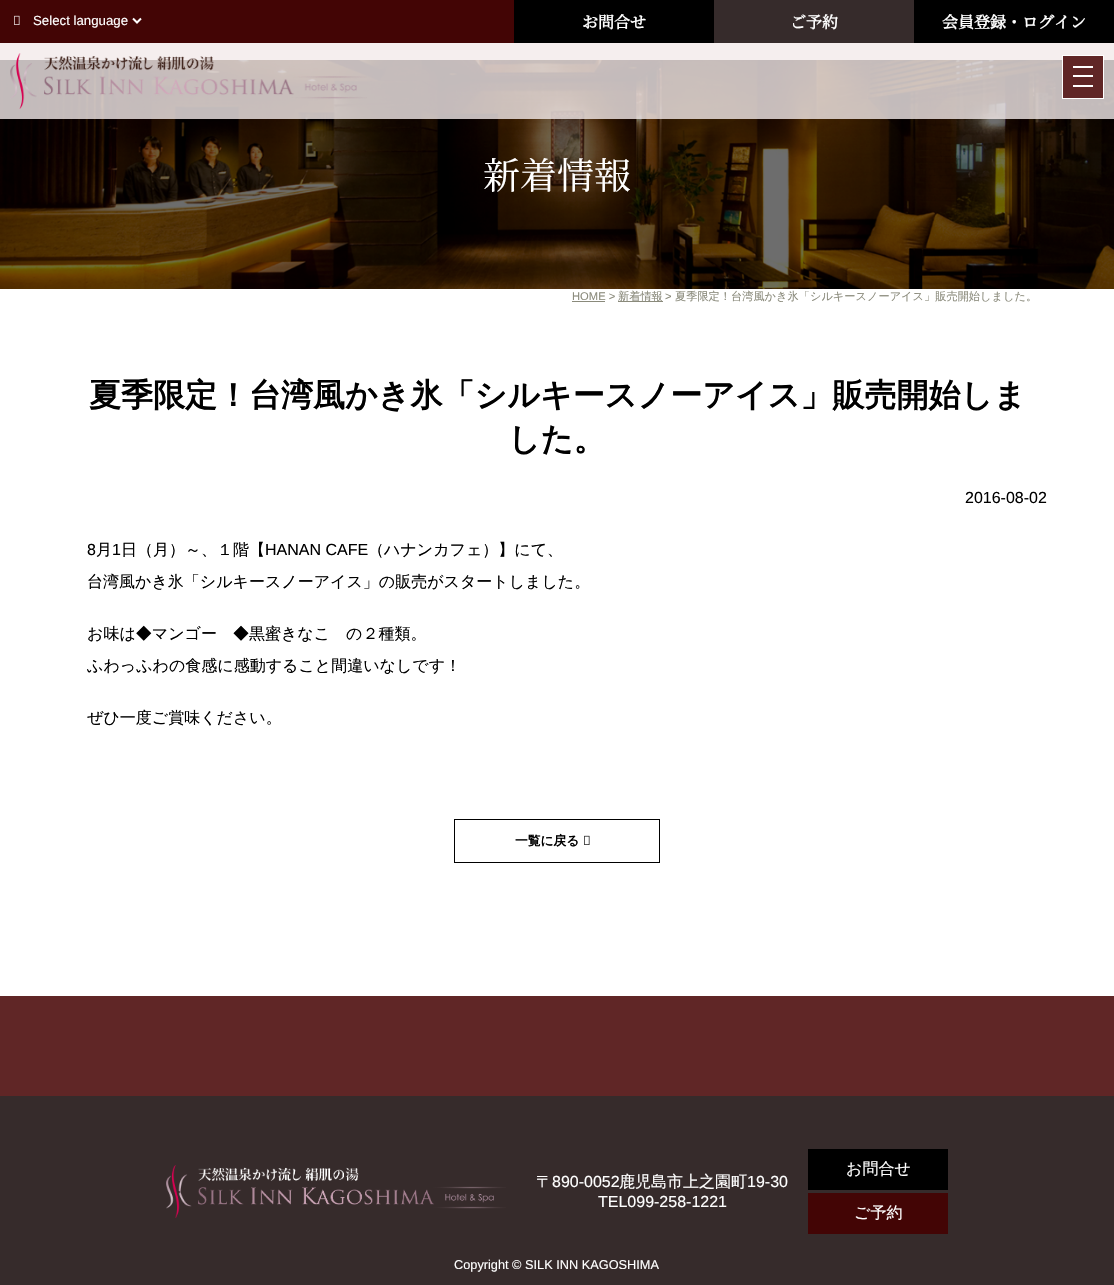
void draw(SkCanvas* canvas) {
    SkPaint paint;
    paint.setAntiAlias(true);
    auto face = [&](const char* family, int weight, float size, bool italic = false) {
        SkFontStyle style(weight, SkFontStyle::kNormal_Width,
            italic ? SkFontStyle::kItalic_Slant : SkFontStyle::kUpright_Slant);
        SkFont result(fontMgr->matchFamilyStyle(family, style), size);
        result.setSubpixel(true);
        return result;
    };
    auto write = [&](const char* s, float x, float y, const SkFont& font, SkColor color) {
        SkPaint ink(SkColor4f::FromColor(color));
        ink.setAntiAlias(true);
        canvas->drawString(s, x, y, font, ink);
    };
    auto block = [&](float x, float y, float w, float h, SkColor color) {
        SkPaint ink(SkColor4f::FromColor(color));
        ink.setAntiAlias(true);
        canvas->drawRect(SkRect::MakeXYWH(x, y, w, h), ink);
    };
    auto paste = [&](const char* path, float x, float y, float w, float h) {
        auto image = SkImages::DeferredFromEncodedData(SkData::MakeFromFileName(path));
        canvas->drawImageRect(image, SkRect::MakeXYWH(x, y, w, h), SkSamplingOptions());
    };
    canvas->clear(SK_ColorWHITE);
    paste("pic3.png", 0, 60, 1114, 229);
    block(0, 43, 1114, 76, SkColorSetARGB(204, 242, 234, 234));
    block(0, 0, 514, 43, SkColorSetRGB(67, 5, 5));
    paste("pic1.png", 14, 15, 6, 10);
    paint.setStyle(SkPaint::kStroke_Style);
    paint.setStrokeWidth(2);
    paint.setColor(SK_ColorWHITE);
    canvas->drawPath(SkPathBuilder().moveTo(133, 18.5f).lineTo(137, 22.5f).lineTo(141, 18.5f).detach(), paint);
    auto kFont1 = face("Liberation Sans", 400, 13.25f);
    write("Select language", 33, 25, kFont1, SK_ColorWHITE);
    block(514, 0, 200, 43, SK_ColorBLACK);
    auto kFont2 = face("Noto Serif JP", 700, 16);
    write("お問合せ", 582, 28, kFont2, SK_ColorWHITE);
    block(714, 0, 200, 43, SkColorSetRGB(54, 43, 43));
    write("ご予約", 790, 28, kFont2, SK_ColorWHITE);
    block(914, 0, 200, 43, SK_ColorBLACK);
    write("会員登録・ログイン", 942, 28, kFont2, SK_ColorWHITE);
    paste("pic2.png", 10, 53, 357, 56);
    paint.setStyle(SkPaint::kFill_Style);
    paint.setColor(SkColorSetRGB(96, 38, 38));
    canvas->drawRect(SkRect::MakeXYWH(1062.5f, 55.5f, 41, 43), paint);
    paint.setStyle(SkPaint::kStroke_Style);
    paint.setStrokeWidth(1);
    paint.setColor(SK_ColorWHITE);
    canvas->drawRect(SkRect::MakeXYWH(1062.5f, 55.5f, 41, 43), paint);
    block(1073, 66, 20, 2, SK_ColorWHITE);
    block(1073, 75, 20, 2, SK_ColorWHITE);
    block(1073, 85, 20, 2, SK_ColorWHITE);
    auto kFont3 = face("Noto Serif JP", 200, 37);
    write("新着情報", 483, 189, kFont3, SK_ColorWHITE);
    auto kFont4 = face("Liberation Sans", 400, 11.2f);
    write("HOME >", 572, 300, kFont4, SkColorSetRGB(138, 138, 123));
    block(572, 301, 33, 1, SkColorSetRGB(138, 138, 123));
    block(618, 301, 45, 1, SkColorSetRGB(138, 138, 123));
    auto kFont5 = face("WenQuanYi Zen Hei", 500, 11.2f);
    write("新着情報", 618, 300, kFont5, SkColorSetRGB(138, 138, 123));
    write(">", 665, 300, kFont4, SkColorSetRGB(138, 138, 123));
    write("夏季限定！台湾風かき氷「シルキースノーアイス」販売開始しました。", 675, 300, kFont5, SkColorSetRGB(138, 138, 123));
    auto kFont6 = face("WenQuanYi Zen Hei", 700, 32);
    write("夏季限定！台湾風かき氷「シルキースノーアイス」販売開始しま", 89, 406, kFont6, SK_ColorBLACK);
    write("した。", 508, 450, kFont6, SK_ColorBLACK);
    auto kFont7 = face("Liberation Sans", 400, 16);
    write("2016-08-02", 965, 503, kFont7, SK_ColorBLACK);
    write("8", 87, 555, kFont7, SK_ColorBLACK);
    auto kFont8 = face("WenQuanYi Zen Hei", 500, 16);
    write("月", 96, 555, kFont8, SK_ColorBLACK);
    write("1", 112, 555, kFont7, SK_ColorBLACK);
    write("日（月）～、１階【", 121, 555, kFont8, SK_ColorBLACK);
    write("HANAN CAFE", 265, 555, kFont7, SK_ColorBLACK);
    write("（ハナンカフェ）】にて、", 368, 555, kFont8, SK_ColorBLACK);
    write("台湾風かき氷「シルキースノーアイス」の販売がスタートしました。", 87, 587, kFont8, SK_ColorBLACK);
    write("お味は◆マンゴー　◆黒蜜きなこ　の２種類。", 87, 639, kFont8, SK_ColorBLACK);
    write("ふわっふわの食感に感動すること間違いなしです！", 87, 671, kFont8, SK_ColorBLACK);
    write("ぜひ一度ご賞味ください。", 87, 723, kFont8, SK_ColorBLACK);
    paint.setColor(SK_ColorBLACK);
    canvas->drawRect(SkRect::MakeXYWH(454.5f, 819.5f, 205, 43), paint);
    auto kFont9 = face("WenQuanYi Zen Hei", 700, 12.75f);
    write("一覧に戻る", 515, 845, kFont9, SK_ColorBLACK);
    paste("pic4.png", 584, 835, 6, 10);
    block(0, 996, 1114, 100, SkColorSetRGB(96, 38, 38));
    block(0, 1096, 1114, 189, SkColorSetRGB(54, 43, 43));
    paste("pic5.png", 166, 1165, 340, 53);
    write("〒", 536, 1187, kFont8, SK_ColorWHITE);
    write("890-0052", 552, 1187, kFont7, SK_ColorWHITE);
    write("鹿児島市上之園町", 619, 1187, kFont8, SK_ColorWHITE);
    write("19-30", 747, 1187, kFont7, SK_ColorWHITE);
    write("TEL099-258-1221", 598, 1207, kFont7, SK_ColorWHITE);
    block(808, 1149, 140, 41, SK_ColorBLACK);
    write("お問合せ", 846, 1174, kFont8, SK_ColorWHITE);
    block(808, 1193, 140, 41, SkColorSetRGB(67, 5, 5));
    write("ご予約", 854, 1218, kFont8, SK_ColorWHITE);
    auto kFont10 = face("Liberation Sans", 400, 12.75f);
    write("Copyright © SILK INN KAGOSHIMA", 454, 1269, kFont10, SK_ColorWHITE);
}
